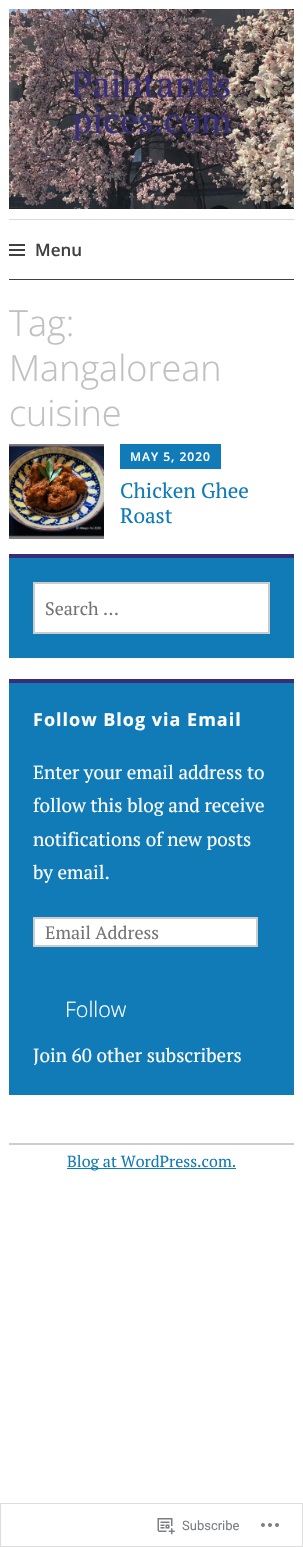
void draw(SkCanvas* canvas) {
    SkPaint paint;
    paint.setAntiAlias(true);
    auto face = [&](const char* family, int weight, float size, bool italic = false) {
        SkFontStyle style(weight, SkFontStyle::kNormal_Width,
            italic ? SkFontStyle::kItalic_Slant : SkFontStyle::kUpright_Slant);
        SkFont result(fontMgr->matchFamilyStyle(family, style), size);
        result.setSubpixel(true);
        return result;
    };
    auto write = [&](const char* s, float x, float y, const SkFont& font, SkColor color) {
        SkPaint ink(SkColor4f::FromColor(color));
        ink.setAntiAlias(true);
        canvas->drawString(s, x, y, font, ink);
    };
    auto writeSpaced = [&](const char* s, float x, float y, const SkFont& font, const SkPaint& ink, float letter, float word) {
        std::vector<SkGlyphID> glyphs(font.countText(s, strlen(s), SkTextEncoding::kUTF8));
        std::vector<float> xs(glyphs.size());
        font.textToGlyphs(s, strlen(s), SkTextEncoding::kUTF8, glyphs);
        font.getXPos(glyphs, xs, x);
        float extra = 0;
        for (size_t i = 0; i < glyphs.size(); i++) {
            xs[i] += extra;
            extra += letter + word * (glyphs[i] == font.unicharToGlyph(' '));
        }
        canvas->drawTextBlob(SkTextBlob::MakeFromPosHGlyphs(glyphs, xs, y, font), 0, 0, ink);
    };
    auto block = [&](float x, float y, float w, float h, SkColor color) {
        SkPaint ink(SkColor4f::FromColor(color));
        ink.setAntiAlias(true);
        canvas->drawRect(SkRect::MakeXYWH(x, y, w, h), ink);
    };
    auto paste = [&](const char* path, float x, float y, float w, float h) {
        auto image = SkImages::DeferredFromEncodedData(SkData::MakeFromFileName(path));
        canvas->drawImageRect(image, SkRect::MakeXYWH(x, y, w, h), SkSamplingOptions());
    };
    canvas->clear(SK_ColorWHITE);
    paste("pic1.png", 9, 9, 285, 200);
    auto kFont1 = face("PT Serif", 400, 36);
    write("Paintands", 71, 97, kFont1, SkColorSetRGB(54, 46, 119));
    write("pices.com", 72, 133, kFont1, SkColorSetRGB(54, 46, 119));
    block(9, 219, 285, 1, SkColorSetRGB(217, 217, 217));
    block(9, 279, 285, 1, SkColorSetRGB(64, 64, 64));
    paste("pic2.png", 9, 244, 16, 12);
    auto kFont2 = face("Open Sans", 600, 17);
    write("Menu", 35, 256, kFont2, SkColorSetRGB(64, 64, 64));
    auto kFont3 = face("Open Sans", 300, 36);
    write("Tag:", 9, 336, kFont3, SkColorSetRGB(192, 192, 192));
    write("Mangalorean", 9, 381, kFont3, SkColorSetRGB(192, 192, 192));
    write("cuisine", 9, 426, kFont3, SkColorSetRGB(192, 192, 192));
    paste("pic3.png", 9, 444, 95, 95);
    block(120, 444, 101, 25, SkColorSetRGB(17, 123, 184));
    auto kFont4 = face("Open Sans", 600, 12);
    paint.setColor(SK_ColorWHITE);
    writeSpaced("MAY 5, 2020", 130, 461, kFont4, paint, 1, 0);
    auto kFont5 = face("PT Serif", 400, 21);
    write("Chicken Ghee", 120, 498, kFont5, SkColorSetRGB(17, 123, 184));
    write("Roast", 120, 523, kFont5, SkColorSetRGB(17, 123, 184));
    block(9, 558, 285, 100, SkColorSetRGB(17, 123, 184));
    block(9, 554, 285, 4, SkColorSetRGB(54, 46, 119));
    canvas->drawRect(SkRect::MakeXYWH(34, 583, 235, 50), paint);
    paint.setStyle(SkPaint::kStroke_Style);
    paint.setStrokeWidth(2);
    paint.setColor(SkColorSetRGB(204, 204, 204));
    canvas->drawRect(SkRect::MakeXYWH(34, 583, 235, 50), paint);
    auto kFont6 = face("PT Serif", 400, 18);
    write("Search …", 45, 615, kFont6, SkColorSetRGB(117, 117, 117));
    block(9, 683, 285, 412, SkColorSetRGB(17, 123, 184));
    block(9, 679, 285, 4, SkColorSetRGB(54, 46, 119));
    auto kFont7 = face("Open Sans", 700, 18);
    paint.setStyle(SkPaint::kFill_Style);
    paint.setColor(SK_ColorWHITE);
    writeSpaced("Follow Blog via Email", 33, 726, kFont7, paint, 1, 0);
    auto kFont8 = face("PT Serif", 400, 19);
    write("Enter your email address to", 33, 779, kFont8, SK_ColorWHITE);
    write("follow this blog and receive", 33, 812, kFont8, SK_ColorWHITE);
    write("notifications of new posts", 33, 846, kFont8, SK_ColorWHITE);
    write("by email.", 33, 879, kFont8, SK_ColorWHITE);
    canvas->drawRect(SkRect::MakeXYWH(34, 918, 223, 28), paint);
    paint.setStyle(SkPaint::kStroke_Style);
    paint.setColor(SkColorSetRGB(204, 204, 204));
    canvas->drawRect(SkRect::MakeXYWH(34, 918, 223, 28), paint);
    write("Email Address", 45, 939, kFont6, SkColorSetRGB(117, 117, 117));
    auto kFont9 = face("Open Sans", 300, 21.5f);
    write("Follow", 65, 1017, kFont9, SK_ColorWHITE);
    write("Join 60 other subscribers", 33, 1062, kFont8, SK_ColorWHITE);
    block(9, 1143, 285, 2, SkColorSetRGB(204, 204, 204));
    block(67, 1168, 169, 1, SkColorSetRGB(17, 123, 184));
    auto kFont10 = face("PT Serif", 400, 16);
    write("Blog at WordPress.com.", 67, 1167, kFont10, SkColorSetRGB(17, 123, 184));
    paint.setStrokeWidth(1);
    paint.setColor(SkColorSetRGB(221, 221, 223));
    canvas->drawRect(SkRect::MakeXYWH(0.5f, 1503.5f, 302, 43), paint);
    paste("pic4.png", 157, 1518, 18, 17);
    auto kFont11 = face("Roboto", 400, 13);
    write("Subscribe", 182, 1530, kFont11, SkColorSetRGB(123, 127, 133));
    paste("pic5.png", 261, 1523, 18, 4);
}
